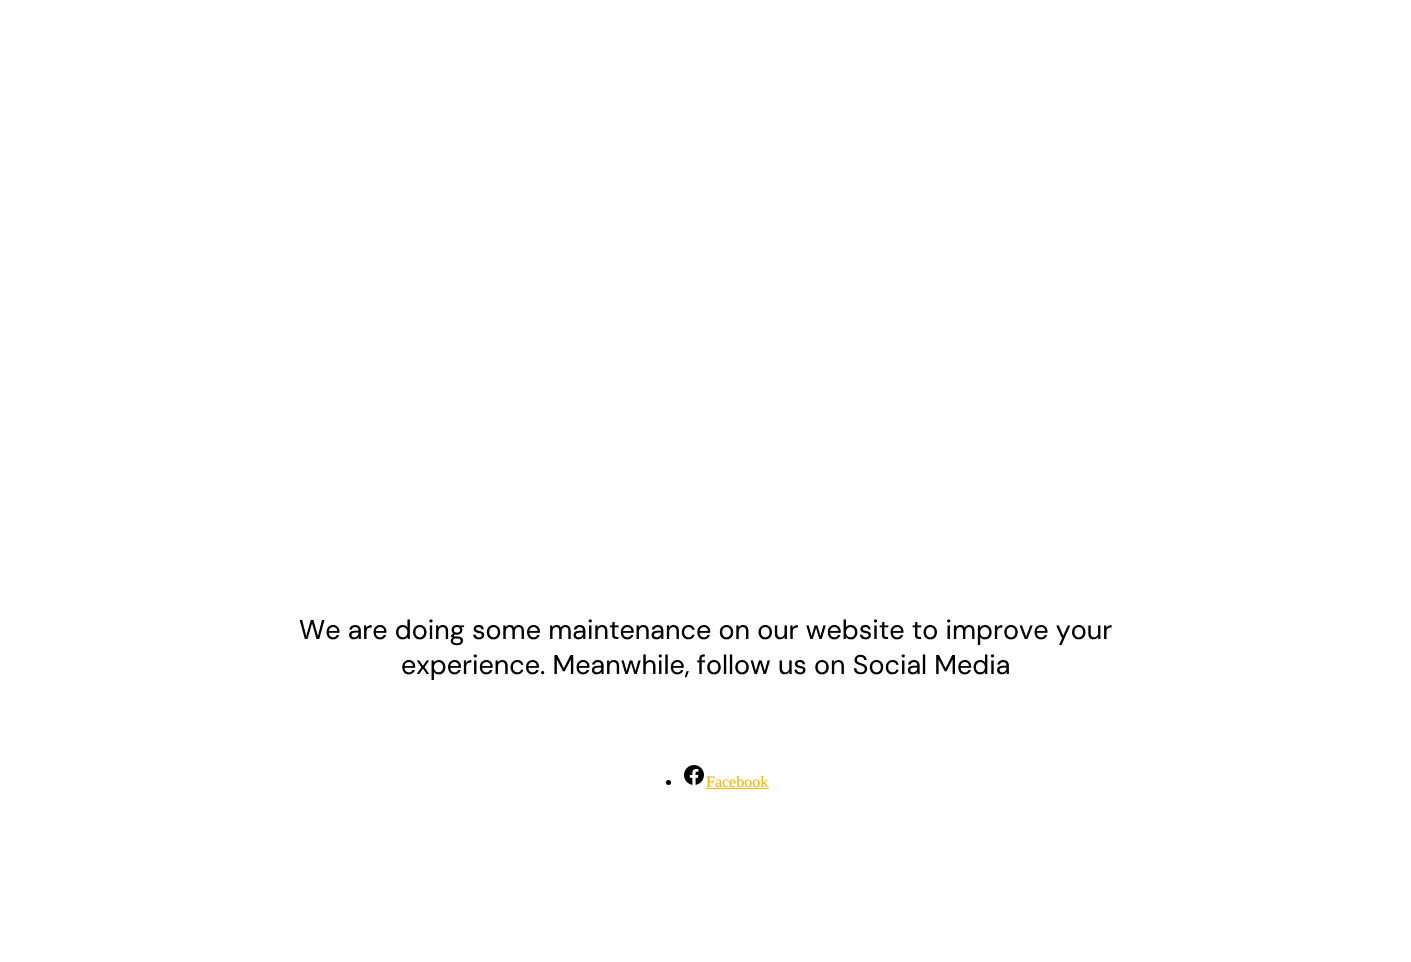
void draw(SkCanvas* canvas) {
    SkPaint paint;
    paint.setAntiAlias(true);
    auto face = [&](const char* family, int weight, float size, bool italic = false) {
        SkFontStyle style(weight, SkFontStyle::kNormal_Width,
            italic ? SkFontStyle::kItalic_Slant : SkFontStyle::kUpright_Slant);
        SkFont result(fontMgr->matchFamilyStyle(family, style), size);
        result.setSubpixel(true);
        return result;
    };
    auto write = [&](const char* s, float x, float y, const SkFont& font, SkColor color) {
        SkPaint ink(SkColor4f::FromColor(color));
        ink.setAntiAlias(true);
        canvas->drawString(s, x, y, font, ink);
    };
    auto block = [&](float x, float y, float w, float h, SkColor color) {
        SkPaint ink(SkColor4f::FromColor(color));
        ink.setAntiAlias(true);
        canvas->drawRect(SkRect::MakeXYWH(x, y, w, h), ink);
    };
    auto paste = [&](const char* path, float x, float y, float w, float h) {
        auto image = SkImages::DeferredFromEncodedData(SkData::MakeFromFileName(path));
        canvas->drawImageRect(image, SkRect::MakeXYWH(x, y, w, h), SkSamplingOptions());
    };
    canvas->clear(SK_ColorWHITE);
    auto kFont1 = face("DM Sans", 400, 27);
    write("We are doing some maintenance on our website to improve your", 299, 639, kFont1, SK_ColorBLACK);
    write("experience. Meanwhile, follow us on Social Media", 401, 674, kFont1, SK_ColorBLACK);
    paint.setColor(SK_ColorBLACK);
    canvas->drawCircle(668.5f, 782.5f, 2.5f, paint);
    paste("pic1.png", 684, 765, 20, 20);
    auto kFont2 = face("Liberation Serif", 400, 16);
    write("Facebook", 706, 787, kFont2, SkColorSetRGB(254, 180, 5));
    block(706, 788, 63, 1, SkColorSetRGB(254, 180, 5));
}
